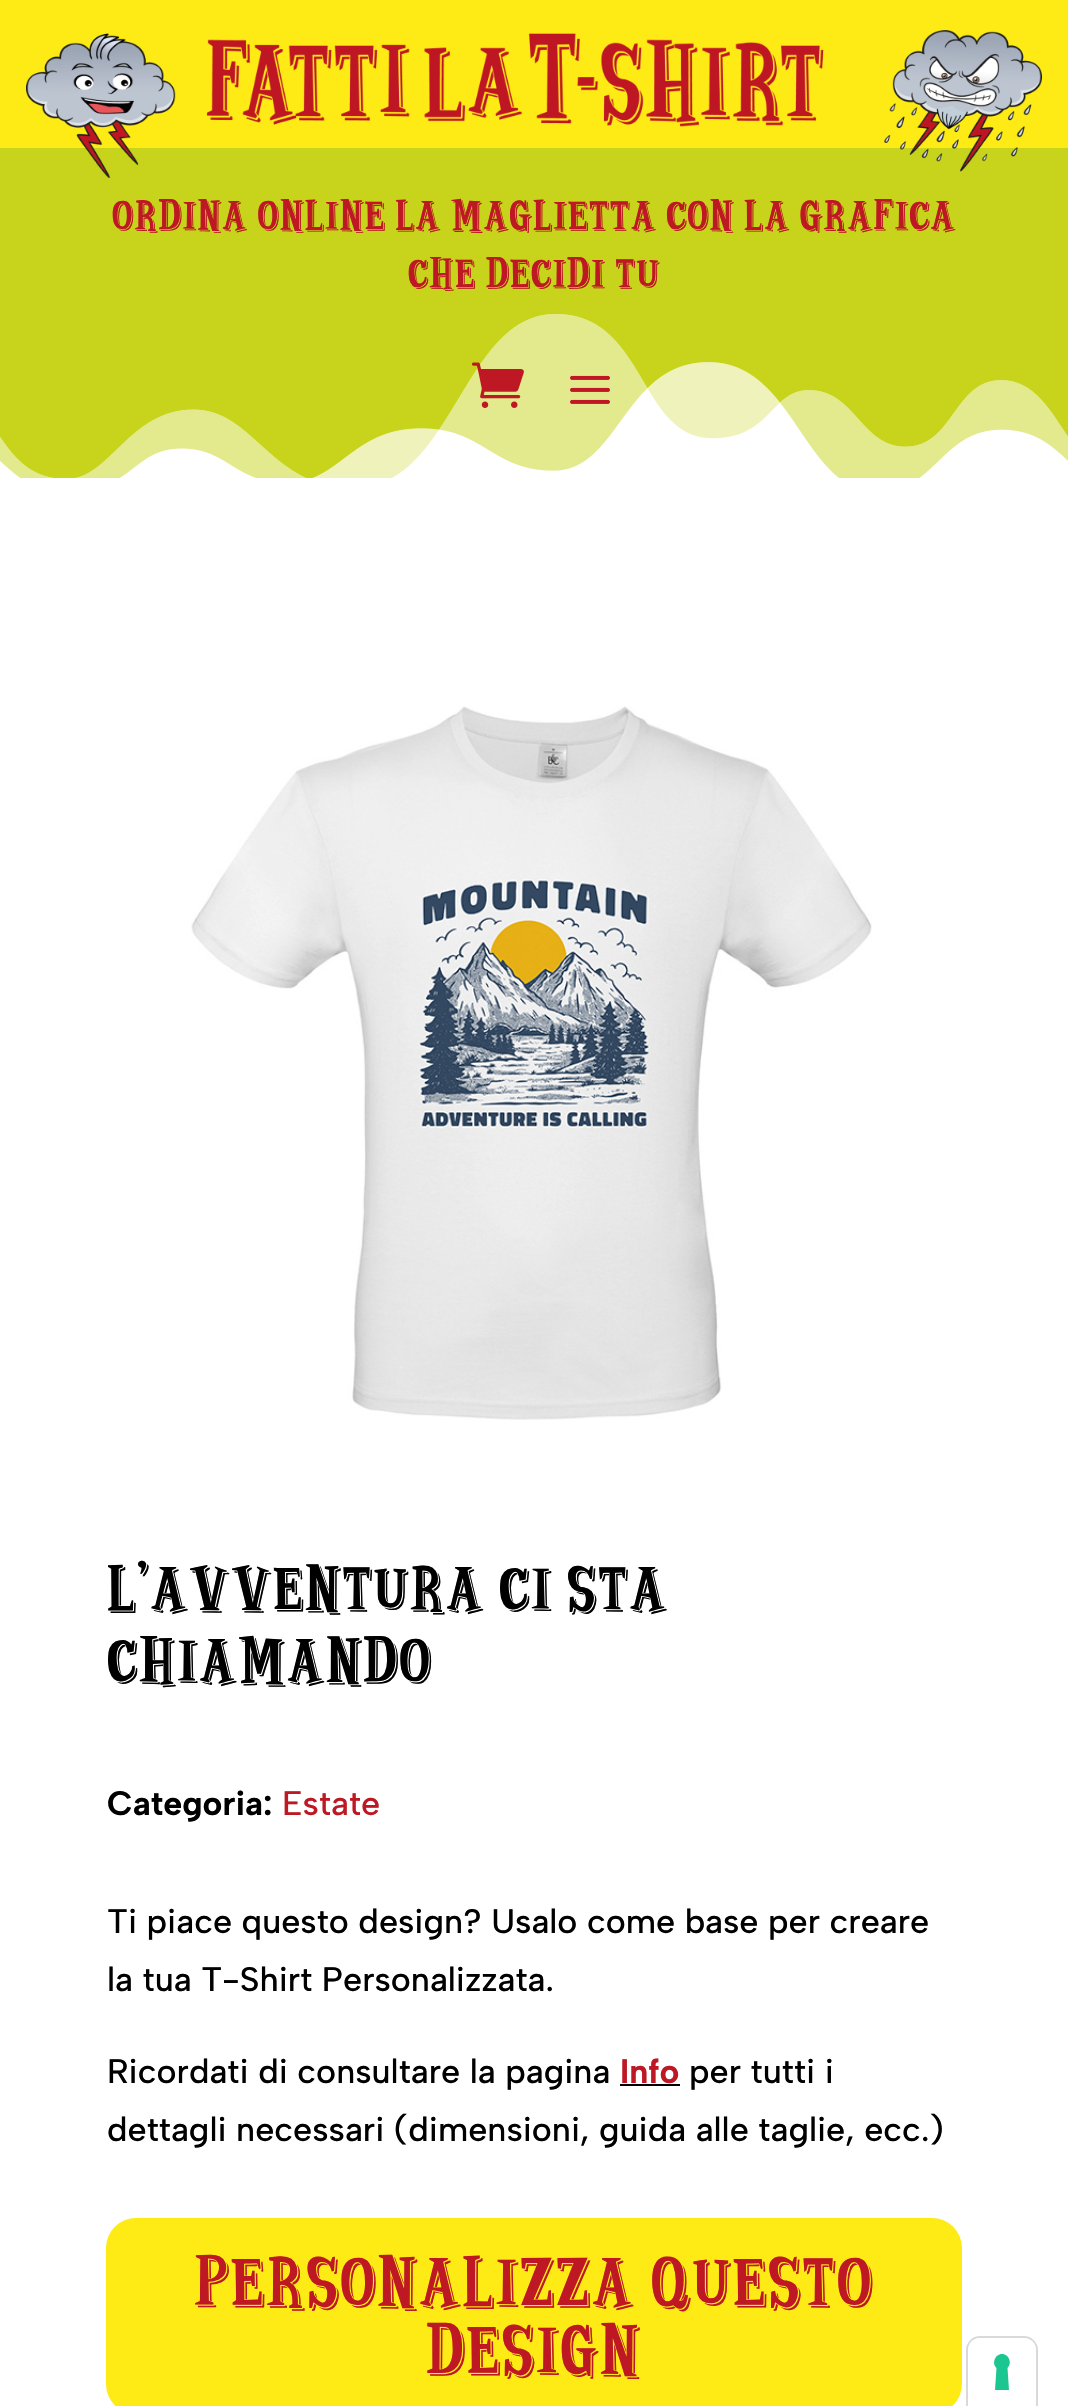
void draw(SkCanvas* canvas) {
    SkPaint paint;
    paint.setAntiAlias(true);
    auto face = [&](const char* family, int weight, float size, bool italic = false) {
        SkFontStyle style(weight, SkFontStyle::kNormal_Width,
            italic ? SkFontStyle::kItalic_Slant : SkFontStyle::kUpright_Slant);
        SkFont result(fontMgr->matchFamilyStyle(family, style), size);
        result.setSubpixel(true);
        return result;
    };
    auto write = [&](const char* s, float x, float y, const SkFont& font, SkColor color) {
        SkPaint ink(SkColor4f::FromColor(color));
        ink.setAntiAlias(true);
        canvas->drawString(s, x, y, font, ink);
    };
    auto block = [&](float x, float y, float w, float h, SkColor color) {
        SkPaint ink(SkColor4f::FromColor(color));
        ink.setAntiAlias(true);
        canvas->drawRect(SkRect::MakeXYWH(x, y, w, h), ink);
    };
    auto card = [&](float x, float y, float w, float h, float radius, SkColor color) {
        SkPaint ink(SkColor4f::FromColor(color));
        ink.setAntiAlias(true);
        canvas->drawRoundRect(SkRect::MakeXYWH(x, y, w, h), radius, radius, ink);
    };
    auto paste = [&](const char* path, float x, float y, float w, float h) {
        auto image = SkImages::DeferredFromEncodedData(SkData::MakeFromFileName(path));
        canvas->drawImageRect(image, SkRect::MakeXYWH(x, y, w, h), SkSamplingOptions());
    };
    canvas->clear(SK_ColorWHITE);
    block(0, 0, 1068, 148, SkColorSetRGB(254, 235, 21));
    block(0, 148, 1068, 166, SkColorSetRGB(200, 212, 27));
    paste("pic1.png", 26, 30, 1016, 148);
    auto kFont1 = face("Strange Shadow", 400, 24);
    write("ORDINA ONLINE LA MAGLIETTA CON LA GRAFICA", 112, 225, kFont1, SkColorSetRGB(189, 24, 35));
    write("CHE DECIDI TU", 408, 283, kFont1, SkColorSetRGB(189, 24, 35));
    paste("pic2.png", 0, 314, 1068, 164);
    paste("pic3.png", 471, 362, 53, 46);
    paste("pic4.png", 570, 375, 40, 29);
    paste("pic5.png", 191, 706, 681, 714);
    auto kFont2 = face("Strange Shadow", 400, 36);
    write("L’AVVENTURA CI STA", 107, 1603, kFont2, SK_ColorBLACK);
    write("CHIAMANDO", 107, 1675, kFont2, SK_ColorBLACK);
    auto kFont3 = face("Albert Sans", 700, 34);
    write("Categoria:", 107, 1815, kFont3, SK_ColorBLACK);
    auto kFont4 = face("Albert Sans", 500, 34);
    write("Estate", 282, 1815, kFont4, SkColorSetRGB(189, 24, 35));
    write("Ti piace questo design? Usalo come base per creare", 107, 1933, kFont4, SK_ColorBLACK);
    write("la tua T-Shirt Personalizzata.", 107, 1991, kFont4, SK_ColorBLACK);
    write("Ricordati di consultare la pagina", 107, 2083, kFont4, SK_ColorBLACK);
    write("Info", 620, 2083, kFont3, SkColorSetRGB(189, 24, 35));
    block(620, 2084, 60, 2, SK_ColorBLACK);
    write("per tutti i", 689, 2083, kFont4, SK_ColorBLACK);
    write("dettagli necessari (dimensioni, guida alle taglie, ecc.)", 107, 2141, kFont4, SK_ColorBLACK);
    card(106, 2218, 856, 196, 30, SkColorSetRGB(254, 235, 21));
    auto kFont5 = face("Strange Shadow", 400, 40);
    write("PERSONALIZZA QUESTO", 194, 2298, kFont5, SkColorSetRGB(189, 24, 35));
    write("DESIGN", 426, 2366, kFont5, SkColorSetRGB(189, 24, 35));
    paint.setStyle(SkPaint::kStroke_Style);
    paint.setStrokeWidth(2);
    paint.setColor(SkColorSetRGB(217, 217, 217));
    canvas->drawPath(SkPathBuilder().moveTo(980, 2337).lineTo(1024, 2337).cubicTo(1031, 2337, 1037, 2343, 1037, 2350).lineTo(1037, 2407).lineTo(967, 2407).lineTo(967, 2350).cubicTo(967, 2343, 973, 2337, 980, 2337).close().detach(), paint);
    paint.setStyle(SkPaint::kFill_Style);
    paint.setColor(SK_ColorWHITE);
    canvas->drawPath(SkPathBuilder().moveTo(980, 2338).lineTo(1024, 2338).cubicTo(1030.5f, 2338, 1036, 2343.5f, 1036, 2350).lineTo(1036, 2406).lineTo(968, 2406).lineTo(968, 2350).cubicTo(968, 2343.5f, 973.5f, 2338, 980, 2338).close().detach(), paint);
    paint.setColor(SkColorSetRGB(28, 198, 145));
    canvas->drawPath(SkPathBuilder(SkPathFillType::kEvenOdd).moveTo(1002, 2354).cubicTo(1009, 2354, 1012.5f, 2363.5f, 1007.5f, 2368).lineTo(1009, 2390).lineTo(995, 2390).lineTo(996.5f, 2368).cubicTo(991.5f, 2363.5f, 995, 2354, 1002, 2354).close().detach(), paint);
}
